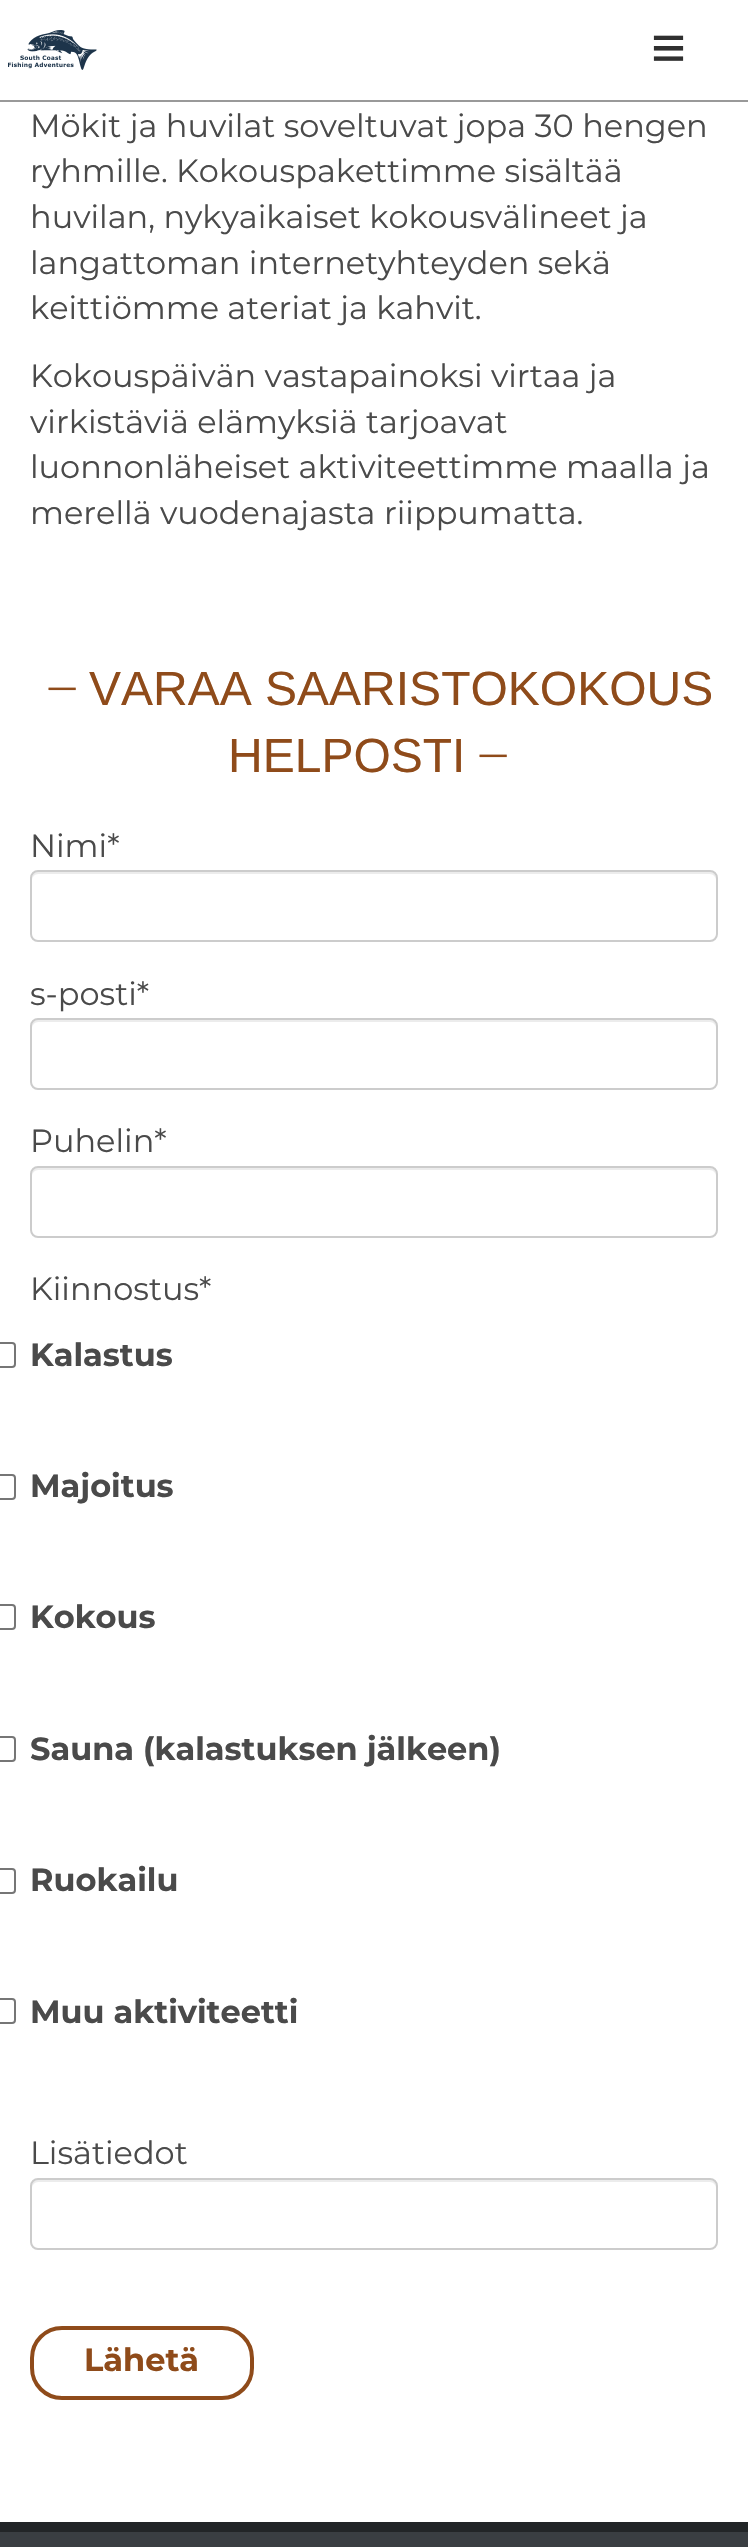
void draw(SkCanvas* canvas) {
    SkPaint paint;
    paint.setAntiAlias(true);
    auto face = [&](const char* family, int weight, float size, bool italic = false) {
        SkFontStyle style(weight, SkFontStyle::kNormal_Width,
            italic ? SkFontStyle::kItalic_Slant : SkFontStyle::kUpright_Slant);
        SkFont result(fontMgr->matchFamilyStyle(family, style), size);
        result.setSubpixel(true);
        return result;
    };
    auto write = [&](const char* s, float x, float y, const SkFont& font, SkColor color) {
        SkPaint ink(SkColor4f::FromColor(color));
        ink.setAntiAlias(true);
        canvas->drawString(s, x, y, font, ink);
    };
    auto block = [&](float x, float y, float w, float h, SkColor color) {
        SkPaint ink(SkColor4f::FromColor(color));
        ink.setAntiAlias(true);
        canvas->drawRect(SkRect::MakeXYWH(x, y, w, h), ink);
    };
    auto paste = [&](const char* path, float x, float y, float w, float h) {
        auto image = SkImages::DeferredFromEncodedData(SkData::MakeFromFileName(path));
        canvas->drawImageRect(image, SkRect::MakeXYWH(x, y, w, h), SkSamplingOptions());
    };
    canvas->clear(SK_ColorWHITE);
    block(0, 100, 748, 2, SkColorSetRGB(153, 153, 153));
    paste("pic1.png", 8, 30, 89, 40);
    auto kFont1 = face("Liberation Sans", 400, 60);
    write("≡", 651, 68, kFont1, SkColorSetRGB(48, 48, 48));
    auto kFont2 = face("Montserrat", 400, 32);
    write("Mökit ja huvilat soveltuvat jopa 30 hengen", 30, 137, kFont2, SkColorSetRGB(74, 74, 74));
    write("ryhmille. Kokouspakettimme sisältää", 30, 182, kFont2, SkColorSetRGB(74, 74, 74));
    write("huvilan, nykyaikaiset kokousvälineet ja", 30, 228, kFont2, SkColorSetRGB(74, 74, 74));
    write("langattoman internetyhteyden sekä", 30, 274, kFont2, SkColorSetRGB(74, 74, 74));
    write("keittiömme ateriat ja kahvit.", 30, 319, kFont2, SkColorSetRGB(74, 74, 74));
    write("Kokouspäivän vastapainoksi virtaa ja", 30, 387, kFont2, SkColorSetRGB(74, 74, 74));
    write("virkistäviä elämyksiä tarjoavat", 30, 433, kFont2, SkColorSetRGB(74, 74, 74));
    write("luonnonläheiset aktiviteettimme maalla ja", 30, 478, kFont2, SkColorSetRGB(74, 74, 74));
    write("merellä vuodenajasta riippumatta.", 30, 524, kFont2, SkColorSetRGB(74, 74, 74));
    auto kFont3 = face("Playfair Display", 400, 60);
    write("–", 45, 705, kFont3, SkColorSetRGB(143, 75, 26));
    auto kFont4 = face("Liberation Sans", 400, 48);
    write("VARAA SAARISTOKOKOUS", 89, 705, kFont4, SkColorSetRGB(143, 75, 26));
    write("HELPOSTI", 228, 772, kFont4, SkColorSetRGB(143, 75, 26));
    write("–", 476, 772, kFont3, SkColorSetRGB(143, 75, 26));
    write("Nimi*", 30, 857, kFont2, SkColorSetRGB(74, 74, 74));
    paint.setColor(SkColorSetRGB(236, 236, 236));
    canvas->drawPath(SkPathBuilder().moveTo(38, 874).lineTo(710, 874).cubicTo(713, 874, 716, 877, 716, 880).cubicTo(716, 876, 715, 872, 710, 872).lineTo(38, 872).cubicTo(33, 872, 32, 876, 32, 880).cubicTo(32, 877, 35, 874, 38, 874).close().detach(), paint);
    paint.setStyle(SkPaint::kStroke_Style);
    paint.setStrokeWidth(2);
    paint.setColor(SkColorSetRGB(204, 204, 204));
    canvas->drawRoundRect(SkRect::MakeXYWH(31, 871, 686, 70), 7, 7, paint);
    write("s-posti*", 30, 1005, kFont2, SkColorSetRGB(74, 74, 74));
    paint.setStyle(SkPaint::kFill_Style);
    paint.setColor(SkColorSetRGB(236, 236, 236));
    canvas->drawPath(SkPathBuilder().moveTo(38, 1022).lineTo(710, 1022).cubicTo(713, 1022, 716, 1025, 716, 1028).cubicTo(716, 1024, 715, 1020, 710, 1020).lineTo(38, 1020).cubicTo(33, 1020, 32, 1024, 32, 1028).cubicTo(32, 1025, 35, 1022, 38, 1022).close().detach(), paint);
    paint.setStyle(SkPaint::kStroke_Style);
    paint.setColor(SkColorSetRGB(204, 204, 204));
    canvas->drawRoundRect(SkRect::MakeXYWH(31, 1019, 686, 70), 7, 7, paint);
    write("Puhelin*", 30, 1152, kFont2, SkColorSetRGB(74, 74, 74));
    paint.setStyle(SkPaint::kFill_Style);
    paint.setColor(SkColorSetRGB(236, 236, 236));
    canvas->drawPath(SkPathBuilder().moveTo(38, 1170).lineTo(710, 1170).cubicTo(713, 1170, 716, 1173, 716, 1176).cubicTo(716, 1172, 715, 1168, 710, 1168).lineTo(38, 1168).cubicTo(33, 1168, 32, 1172, 32, 1176).cubicTo(32, 1173, 35, 1170, 38, 1170).close().detach(), paint);
    paint.setStyle(SkPaint::kStroke_Style);
    paint.setColor(SkColorSetRGB(204, 204, 204));
    canvas->drawRoundRect(SkRect::MakeXYWH(31, 1167, 686, 70), 7, 7, paint);
    write("Kiinnostus*", 30, 1300, kFont2, SkColorSetRGB(74, 74, 74));
    paint.setColor(SkColorSetRGB(118, 118, 118));
    canvas->drawRoundRect(SkRect::MakeXYWH(-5, 1343, 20, 24), 3, 3, paint);
    auto kFont5 = face("Montserrat", 700, 32);
    write("Kalastus", 30, 1366, kFont5, SkColorSetRGB(74, 74, 74));
    canvas->drawRoundRect(SkRect::MakeXYWH(-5, 1475, 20, 24), 3, 3, paint);
    write("Majoitus", 30, 1497, kFont5, SkColorSetRGB(74, 74, 74));
    canvas->drawRoundRect(SkRect::MakeXYWH(-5, 1605, 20, 24), 3, 3, paint);
    write("Kokous", 30, 1628, kFont5, SkColorSetRGB(74, 74, 74));
    canvas->drawRoundRect(SkRect::MakeXYWH(-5, 1737, 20, 24), 3, 3, paint);
    write("Sauna (kalastuksen jälkeen)", 30, 1760, kFont5, SkColorSetRGB(74, 74, 74));
    canvas->drawRoundRect(SkRect::MakeXYWH(-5, 1869, 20, 24), 3, 3, paint);
    write("Ruokailu", 30, 1891, kFont5, SkColorSetRGB(74, 74, 74));
    canvas->drawRoundRect(SkRect::MakeXYWH(-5, 1999, 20, 24), 3, 3, paint);
    write("Muu aktiviteetti", 30, 2023, kFont5, SkColorSetRGB(74, 74, 74));
    write("Lisätiedot", 30, 2164, kFont2, SkColorSetRGB(74, 74, 74));
    paint.setStyle(SkPaint::kFill_Style);
    paint.setColor(SkColorSetRGB(236, 236, 236));
    canvas->drawPath(SkPathBuilder().moveTo(38, 2182).lineTo(710, 2182).cubicTo(713, 2182, 716, 2185, 716, 2188).cubicTo(716, 2184, 715, 2180, 710, 2180).lineTo(38, 2180).cubicTo(33, 2180, 32, 2184, 32, 2188).cubicTo(32, 2185, 35, 2182, 38, 2182).close().detach(), paint);
    paint.setStyle(SkPaint::kStroke_Style);
    paint.setColor(SkColorSetRGB(204, 204, 204));
    canvas->drawRoundRect(SkRect::MakeXYWH(31, 2179, 686, 70), 7, 7, paint);
    paint.setStrokeWidth(4);
    paint.setColor(SkColorSetRGB(143, 75, 26));
    canvas->drawRoundRect(SkRect::MakeXYWH(32, 2328, 220, 70), 30, 30, paint);
    write("Lähetä", 84, 2371, kFont5, SkColorSetRGB(143, 75, 26));
    block(0, 2532, 748, 15, SkColorSetRGB(58, 62, 66));
    block(0, 2522, 748, 10, SkColorSetRGB(34, 37, 39));
}
